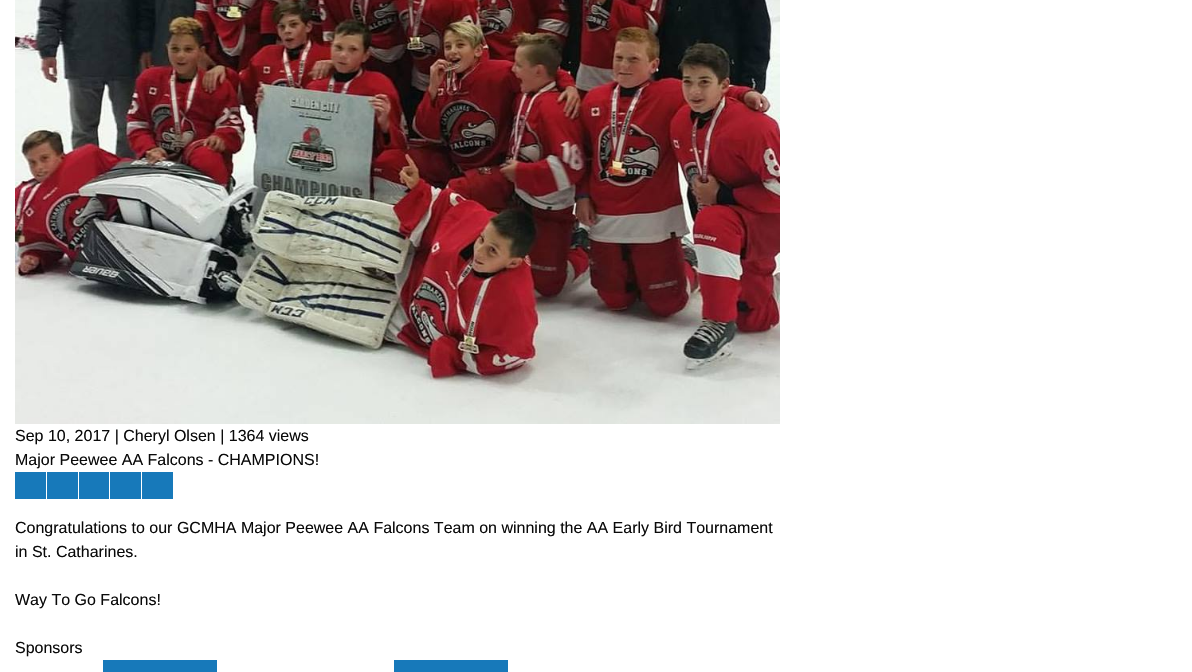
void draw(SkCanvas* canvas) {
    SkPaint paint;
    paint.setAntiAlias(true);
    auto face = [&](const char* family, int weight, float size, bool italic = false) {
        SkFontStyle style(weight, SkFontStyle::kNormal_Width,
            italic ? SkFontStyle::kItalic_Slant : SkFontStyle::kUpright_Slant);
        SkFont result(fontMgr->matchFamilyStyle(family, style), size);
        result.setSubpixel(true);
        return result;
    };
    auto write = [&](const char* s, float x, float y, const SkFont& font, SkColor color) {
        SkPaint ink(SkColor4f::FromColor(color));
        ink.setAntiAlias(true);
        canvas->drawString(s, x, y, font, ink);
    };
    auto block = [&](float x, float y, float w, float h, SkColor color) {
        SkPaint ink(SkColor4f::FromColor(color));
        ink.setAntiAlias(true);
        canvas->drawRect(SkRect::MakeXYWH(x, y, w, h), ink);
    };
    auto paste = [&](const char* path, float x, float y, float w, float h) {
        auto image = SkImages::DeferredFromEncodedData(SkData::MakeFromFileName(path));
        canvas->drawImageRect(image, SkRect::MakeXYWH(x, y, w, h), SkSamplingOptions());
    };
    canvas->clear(SK_ColorWHITE);
    paste("pic1.png", 15, 0, 765, 424);
    auto kFont1 = face("Liberation Sans", 400, 16);
    write("Sep 10, 2017 | Cheryl Olsen | 1364 views", 15, 441, kFont1, SkColorSetRGB(10, 10, 10));
    write("Major Peewee AA Falcons - CHAMPIONS!", 15, 465, kFont1, SkColorSetRGB(10, 10, 10));
    block(15, 472, 31, 27, SkColorSetRGB(23, 121, 186));
    block(47, 472, 31, 27, SkColorSetRGB(23, 121, 186));
    block(79, 472, 30, 27, SkColorSetRGB(23, 121, 186));
    block(110, 472, 31, 27, SkColorSetRGB(23, 121, 186));
    block(142, 472, 31, 27, SkColorSetRGB(23, 121, 186));
    write("Congratulations to our GCMHA Major Peewee AA Falcons Team on winning the AA Early Bird Tournament", 15, 533, kFont1, SkColorSetRGB(10, 10, 10));
    write("in St. Catharines.", 15, 557, kFont1, SkColorSetRGB(10, 10, 10));
    write("Way To Go Falcons!", 15, 605, kFont1, SkColorSetRGB(10, 10, 10));
    write("Sponsors", 15, 653, kFont1, SkColorSetRGB(10, 10, 10));
    block(103, 660, 114, 12, SkColorSetRGB(23, 121, 186));
    block(394, 660, 114, 12, SkColorSetRGB(23, 121, 186));
}
